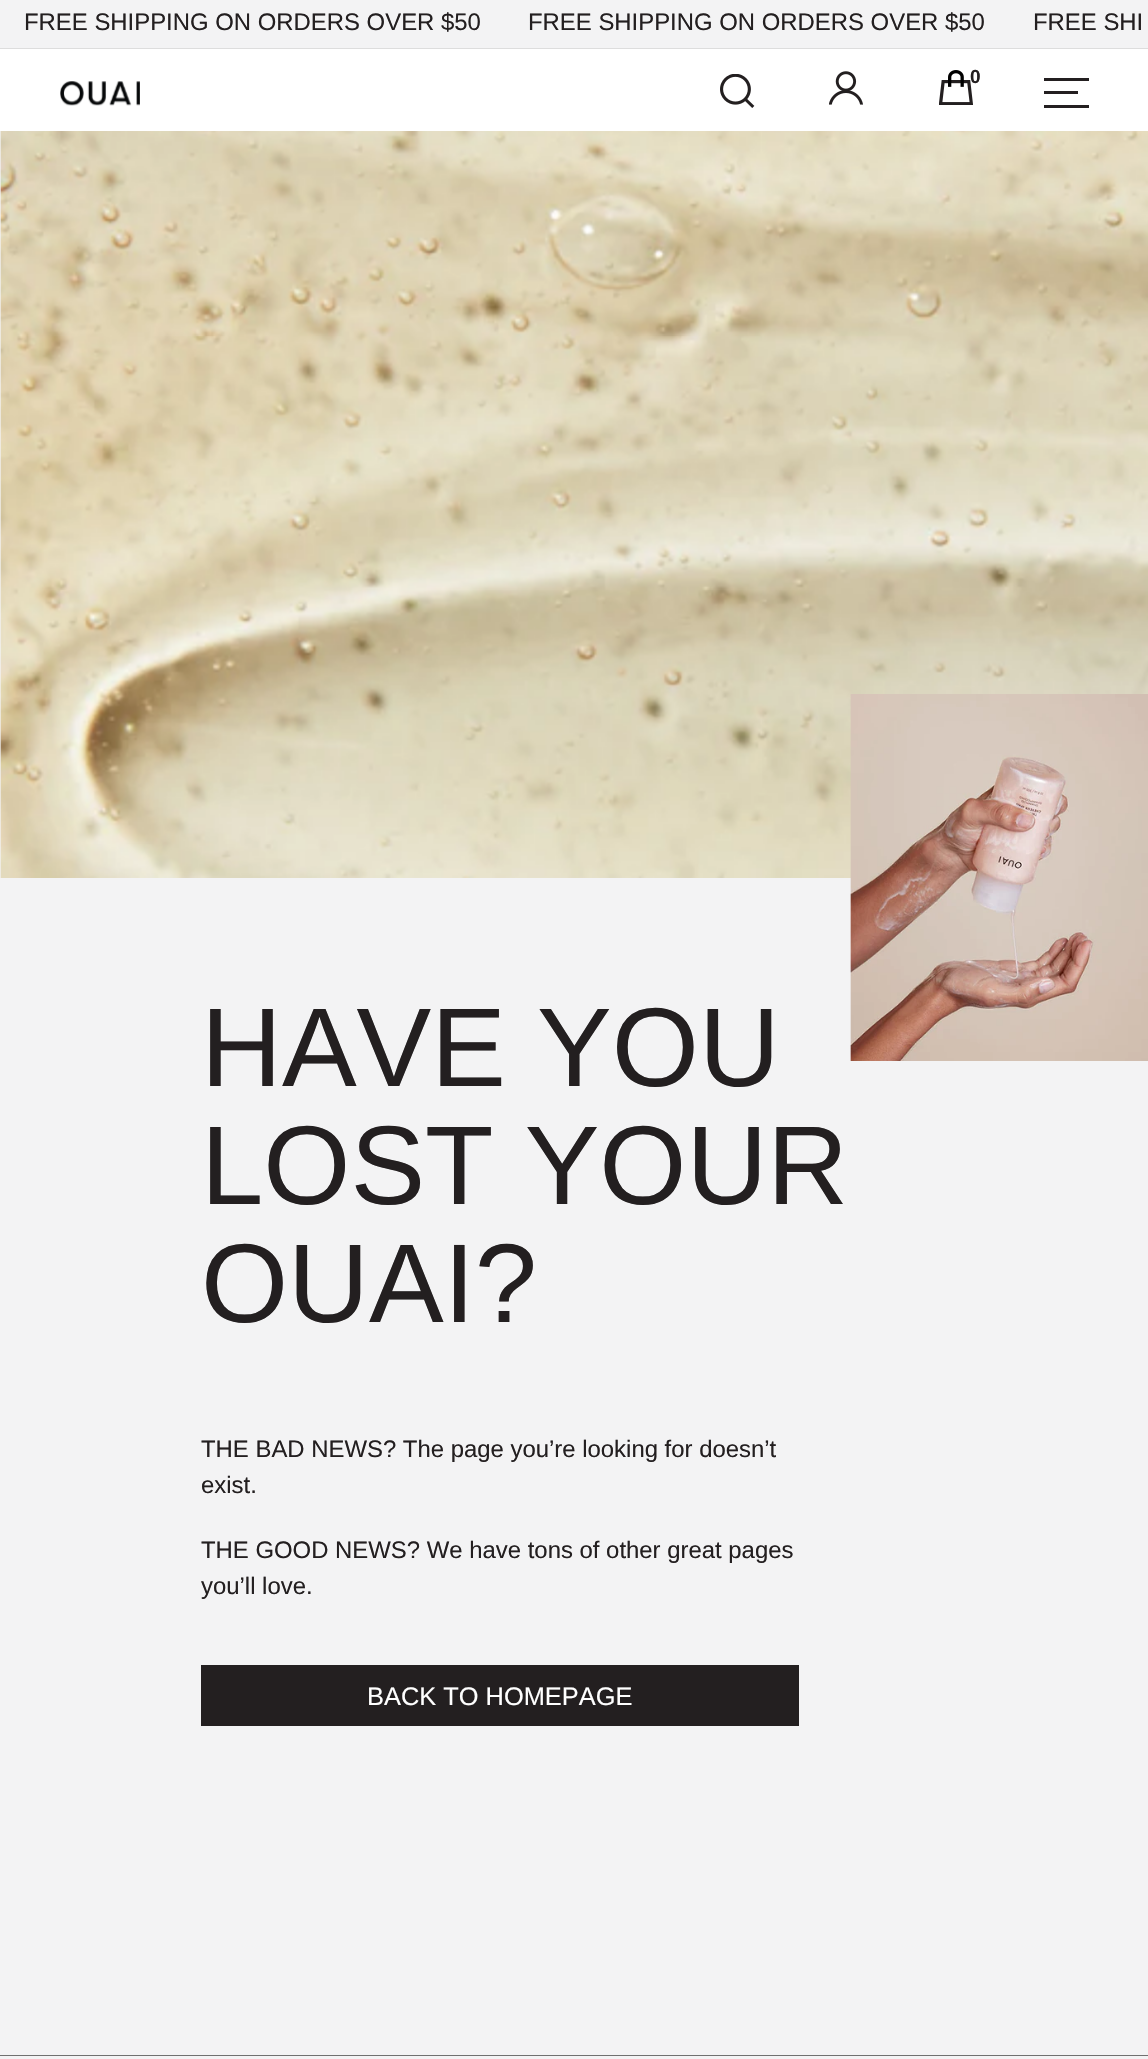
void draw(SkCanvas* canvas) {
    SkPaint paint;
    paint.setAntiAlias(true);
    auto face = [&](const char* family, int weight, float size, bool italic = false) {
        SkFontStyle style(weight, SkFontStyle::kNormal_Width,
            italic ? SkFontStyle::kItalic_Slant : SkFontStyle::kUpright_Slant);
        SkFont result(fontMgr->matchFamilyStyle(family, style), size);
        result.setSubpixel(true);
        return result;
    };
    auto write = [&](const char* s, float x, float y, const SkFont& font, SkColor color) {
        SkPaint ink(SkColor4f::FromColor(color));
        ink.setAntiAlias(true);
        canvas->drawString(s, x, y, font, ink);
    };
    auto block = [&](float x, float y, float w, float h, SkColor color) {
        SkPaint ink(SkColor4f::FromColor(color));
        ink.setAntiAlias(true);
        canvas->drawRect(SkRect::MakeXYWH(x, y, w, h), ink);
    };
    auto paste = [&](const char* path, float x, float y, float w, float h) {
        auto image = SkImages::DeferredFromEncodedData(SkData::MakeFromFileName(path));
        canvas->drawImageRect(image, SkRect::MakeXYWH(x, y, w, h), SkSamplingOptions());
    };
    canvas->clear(SkColorSetRGB(243, 243, 244));
    auto kFont1 = face("Liberation Sans", 400, 23.9f);
    write("FREE SHIPPING ON ORDERS OVER $50", 24, 30, kFont1, SkColorSetRGB(35, 31, 32));
    write("FREE SHIPPING ON ORDERS OVER $50", 528, 30, kFont1, SkColorSetRGB(35, 31, 32));
    write("FREE SHI", 1033, 30, kFont1, SkColorSetRGB(35, 31, 32));
    block(0, 49, 1148, 82, SK_ColorWHITE);
    block(0, 48, 1148, 1, SkColorSetRGB(221, 221, 221));
    paste("pic1.png", 720, 74, 35, 34);
    paste("pic2.png", 829, 71, 34, 34);
    auto kFont2 = face("Liberation Sans", 700, 19);
    write("0", 970, 83, kFont2, SkColorSetRGB(35, 31, 32));
    paste("pic3.png", 939, 70, 34, 35);
    paste("pic4.png", 60, 81, 80, 25);
    block(1044, 78, 45, 3, SkColorSetRGB(35, 31, 32));
    block(1044, 91, 34, 3, SkColorSetRGB(35, 31, 32));
    block(1044, 105, 45, 3, SkColorSetRGB(35, 31, 32));
    paste("pic5.png", 0, 131, 1148, 747);
    paste("pic6.png", 850, 694, 298, 367);
    auto kFont3 = face("Liberation Sans", 400, 112);
    write("HAVE YOU", 201, 1086, kFont3, SkColorSetRGB(35, 31, 32));
    write("LOST YOUR", 201, 1204, kFont3, SkColorSetRGB(35, 31, 32));
    write("OUAI?", 201, 1322, kFont3, SkColorSetRGB(35, 31, 32));
    write("THE BAD NEWS? The page you’re looking for doesn’t", 201, 1457, kFont1, SkColorSetRGB(35, 31, 32));
    write("exist.", 201, 1493, kFont1, SkColorSetRGB(35, 31, 32));
    write("THE GOOD NEWS? We have tons of other great pages", 201, 1558, kFont1, SkColorSetRGB(35, 31, 32));
    write("you’ll love.", 201, 1594, kFont1, SkColorSetRGB(35, 31, 32));
    block(201, 1665, 598, 61, SkColorSetRGB(35, 31, 32));
    auto kFont4 = face("Liberation Sans", 400, 25.4f);
    write("BACK TO HOMEPAGE", 367, 1705, kFont4, SK_ColorWHITE);
    block(0, 2055, 1148, 1, SkColorSetRGB(112, 112, 112));
}
